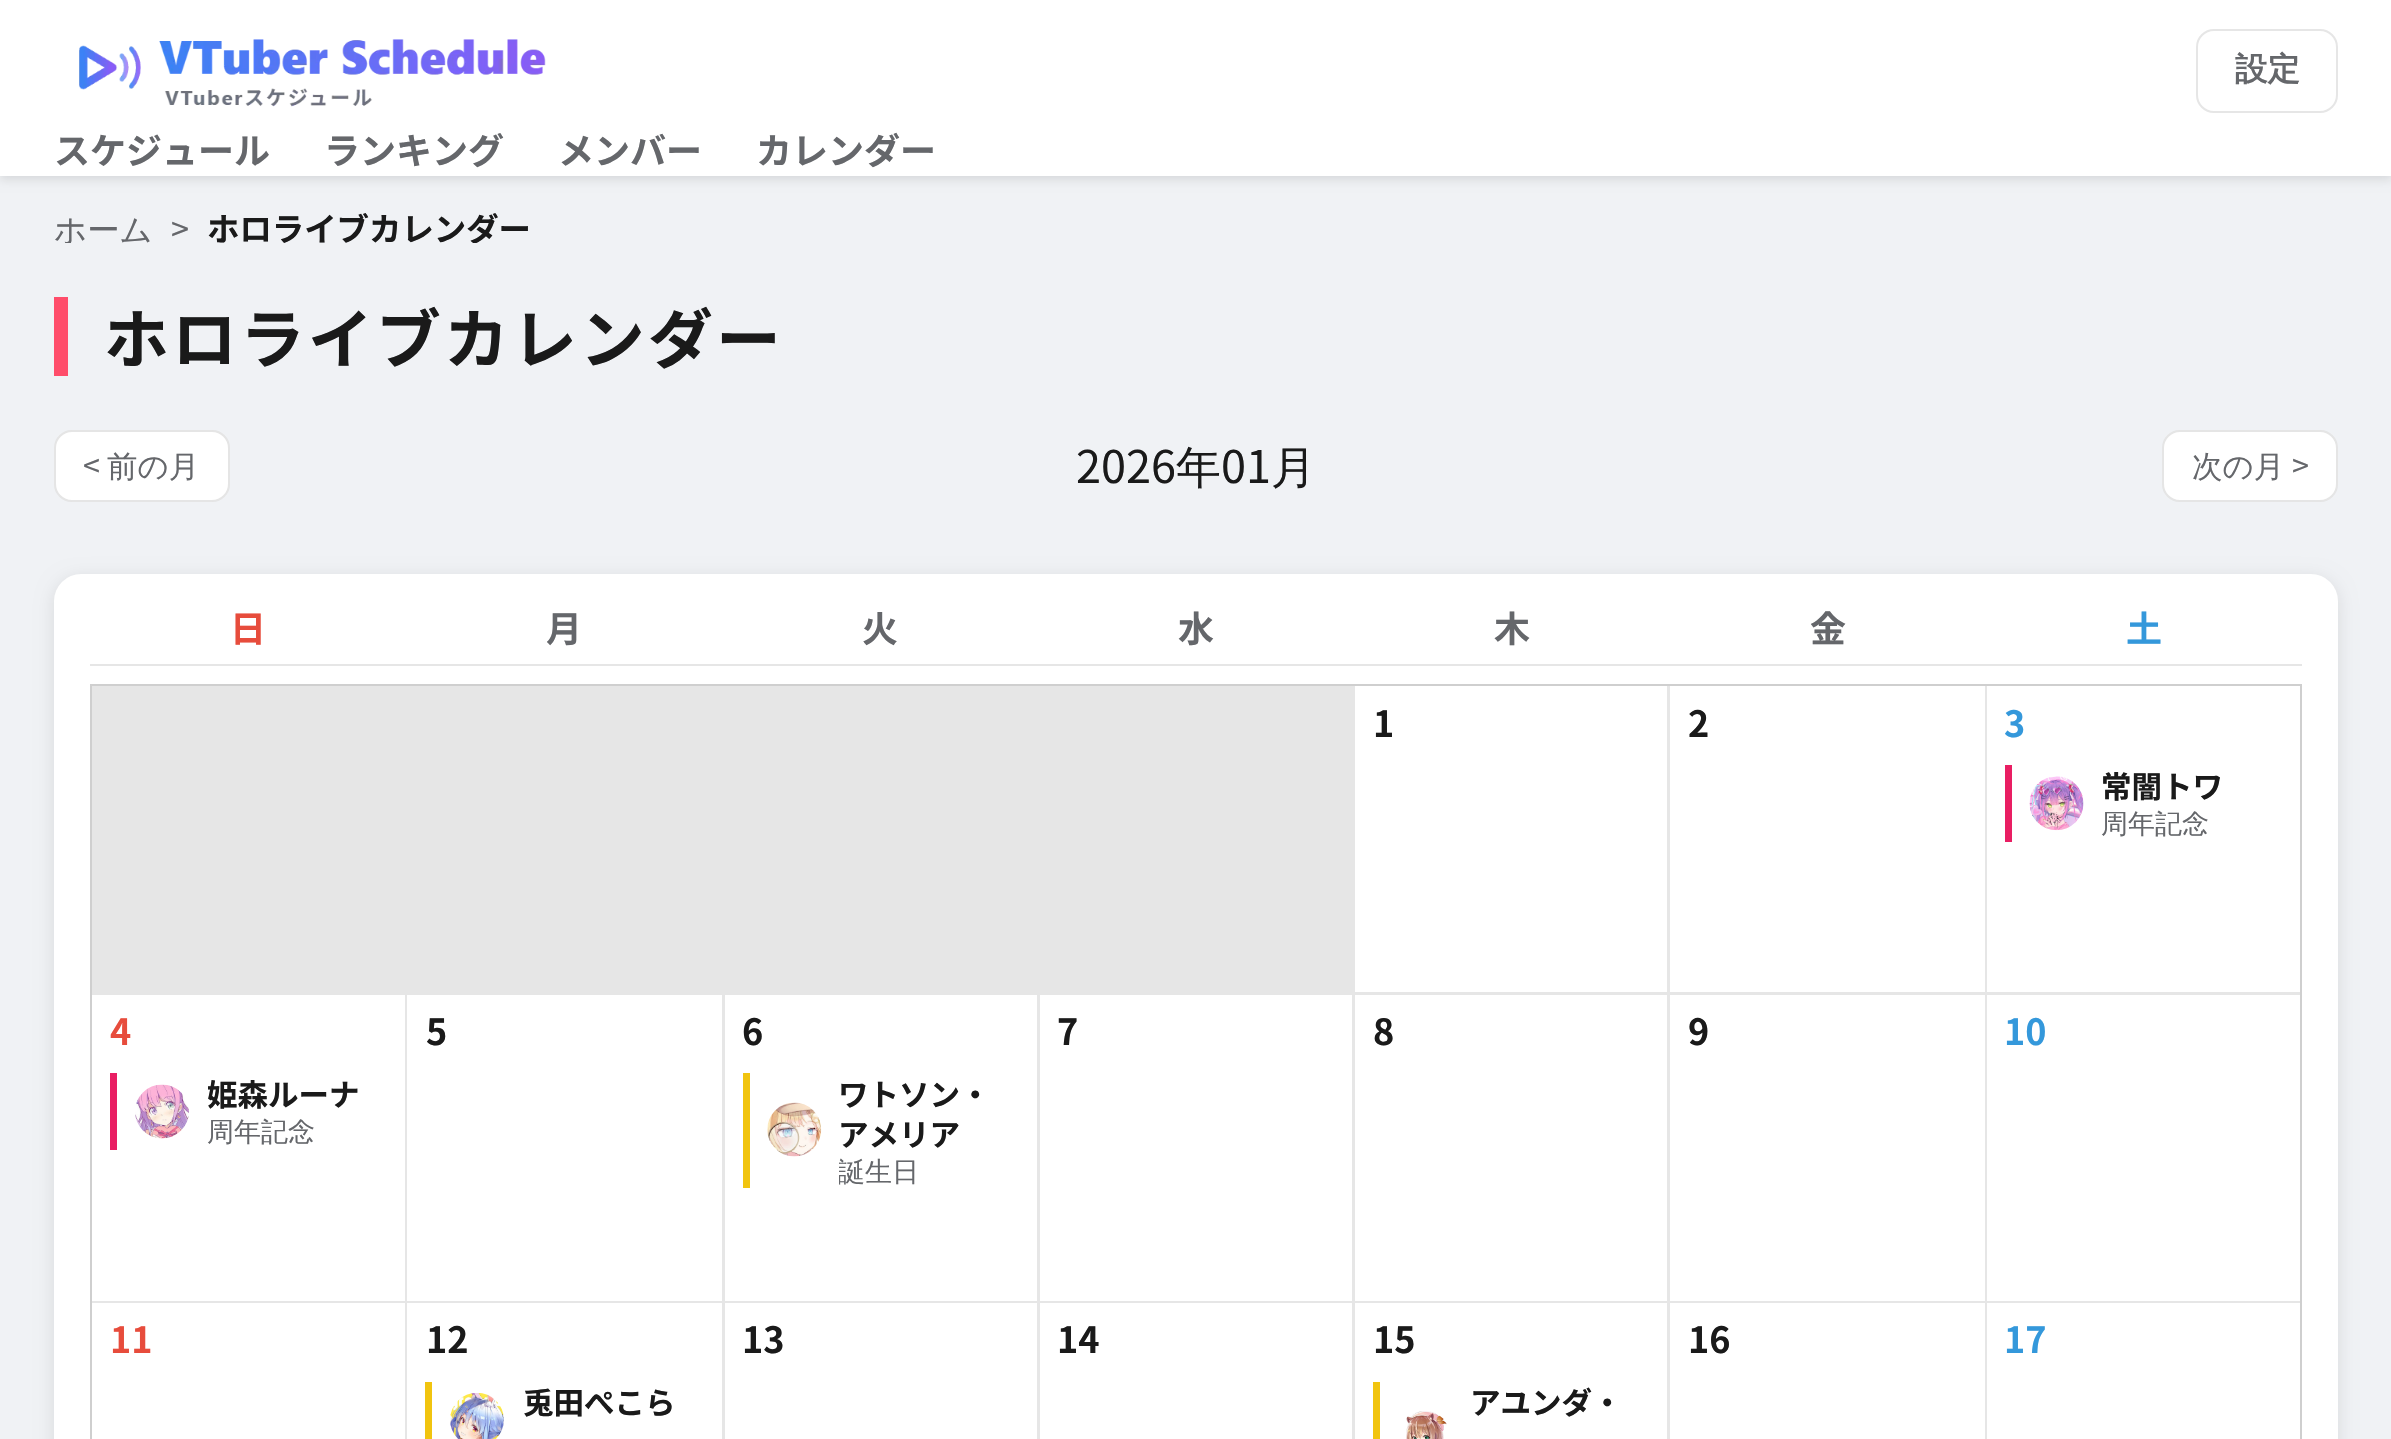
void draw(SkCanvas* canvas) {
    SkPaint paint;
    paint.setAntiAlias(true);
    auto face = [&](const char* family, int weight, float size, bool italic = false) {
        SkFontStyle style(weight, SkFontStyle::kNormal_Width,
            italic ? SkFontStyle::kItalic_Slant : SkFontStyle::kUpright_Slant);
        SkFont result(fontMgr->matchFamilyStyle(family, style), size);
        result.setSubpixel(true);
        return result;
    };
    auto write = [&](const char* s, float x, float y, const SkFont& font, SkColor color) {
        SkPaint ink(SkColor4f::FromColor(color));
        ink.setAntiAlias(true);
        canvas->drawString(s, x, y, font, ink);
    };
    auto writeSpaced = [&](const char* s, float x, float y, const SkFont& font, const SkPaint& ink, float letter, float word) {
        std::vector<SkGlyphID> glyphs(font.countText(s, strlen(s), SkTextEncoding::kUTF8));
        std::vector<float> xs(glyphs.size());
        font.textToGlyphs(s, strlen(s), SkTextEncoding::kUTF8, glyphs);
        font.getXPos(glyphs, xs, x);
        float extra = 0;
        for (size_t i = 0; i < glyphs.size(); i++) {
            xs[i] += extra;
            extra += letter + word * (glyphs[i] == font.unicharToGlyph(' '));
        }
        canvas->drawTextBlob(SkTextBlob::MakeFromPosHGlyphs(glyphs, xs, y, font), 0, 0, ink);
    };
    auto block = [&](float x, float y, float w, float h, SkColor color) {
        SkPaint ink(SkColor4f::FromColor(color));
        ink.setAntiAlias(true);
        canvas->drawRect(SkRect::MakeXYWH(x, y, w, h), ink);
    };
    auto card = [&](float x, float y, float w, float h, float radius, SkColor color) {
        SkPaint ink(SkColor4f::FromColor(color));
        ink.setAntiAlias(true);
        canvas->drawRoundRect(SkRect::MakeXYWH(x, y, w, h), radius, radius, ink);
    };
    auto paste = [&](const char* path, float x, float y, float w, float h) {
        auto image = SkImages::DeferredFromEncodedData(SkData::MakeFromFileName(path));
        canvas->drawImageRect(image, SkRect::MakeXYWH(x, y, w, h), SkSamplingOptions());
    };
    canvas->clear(SkColorSetRGB(240, 242, 245));
    paint.setColor(SkColorSetARGB(26, 0, 0, 0));
    paint.setMaskFilter(SkMaskFilter::MakeBlur(kNormal_SkBlurStyle, 4.5f));
    canvas->drawRect(SkRect::MakeXYWH(0, 5, 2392, 175), paint);
    paint.setMaskFilter(nullptr);
    block(0, 0, 2391, 176, SK_ColorWHITE);
    paste("pic1.png", 79, 39, 467, 68);
    paint.setStyle(SkPaint::kStroke_Style);
    paint.setStrokeWidth(2);
    paint.setColor(SkColorSetRGB(230, 230, 230));
    canvas->drawRoundRect(SkRect::MakeXYWH(2197, 30, 140, 82), 17, 17, paint);
    auto kFont1 = face("WenQuanYi Zen Hei", 700, 32.4f);
    write("設定", 2235, 80, kFont1, SkColorSetRGB(101, 103, 107));
    auto kFont2 = face("Noto Sans JP", 700, 36);
    write("スケジュール", 54, 164, kFont2, SkColorSetRGB(101, 103, 107));
    write("ランキング", 324, 164, kFont2, SkColorSetRGB(101, 103, 107));
    write("メンバー", 558, 164, kFont2, SkColorSetRGB(101, 103, 107));
    write("カレンダー", 756, 164, kFont2, SkColorSetRGB(101, 103, 107));
    canvas->save();
    canvas->clipRect(SkRect::MakeXYWH(54, 212, 2284, 31));
    auto kFont3 = face("WenQuanYi Zen Hei", 500, 32.4f);
    write("ホーム", 54, 241, kFont3, SkColorSetRGB(101, 103, 107));
    canvas->restore();
    auto kFont4 = face("Noto Sans JP", 100, 32.4f);
    write(">", 171, 241, kFont4, SkColorSetRGB(101, 103, 107));
    canvas->save();
    canvas->clipRect(SkRect::MakeXYWH(54, 212, 2284, 31));
    auto kFont5 = face("Noto Sans JP", 700, 32.4f);
    write("ホロライブカレンダー", 207, 241, kFont5, SkColorSetRGB(26, 26, 26));
    canvas->restore();
    block(54, 297, 14, 79, SkColorSetRGB(255, 77, 106));
    auto kFont6 = face("Noto Sans JP", 700, 64.75f);
    paint.setStyle(SkPaint::kFill_Style);
    paint.setColor(SkColorSetRGB(26, 26, 26));
    writeSpaced("ホロライブカレンダー", 104, 363, kFont6, paint, 3.25f, 0);
    card(54, 430, 176, 72, 18, SK_ColorWHITE);
    paint.setStyle(SkPaint::kStroke_Style);
    paint.setColor(SkColorSetARGB(26, 0, 0, 0));
    canvas->drawRoundRect(SkRect::MakeXYWH(55, 431, 174, 70), 17, 17, paint);
    auto kFont7 = face("Noto Sans JP", 100, 30.5f);
    write("<", 83, 477, kFont7, SkColorSetRGB(101, 103, 107));
    auto kFont8 = face("WenQuanYi Zen Hei", 500, 30.5f);
    write("前の月", 107, 477, kFont8, SkColorSetRGB(101, 103, 107));
    auto kFont9 = face("Noto Sans JP", 100, 45);
    write("2026", 1076, 483, kFont9, SkColorSetRGB(26, 26, 26));
    auto kFont10 = face("WenQuanYi Zen Hei", 500, 45);
    write("年", 1176, 483, kFont10, SkColorSetRGB(26, 26, 26));
    write("01", 1221, 483, kFont9, SkColorSetRGB(26, 26, 26));
    write("月", 1271, 483, kFont10, SkColorSetRGB(26, 26, 26));
    card(2162, 430, 176, 72, 18, SK_ColorWHITE);
    canvas->drawRoundRect(SkRect::MakeXYWH(2163, 431, 174, 70), 17, 17, paint);
    write("次の月", 2192, 477, kFont8, SkColorSetRGB(101, 103, 107));
    write(">", 2292, 477, kFont7, SkColorSetRGB(101, 103, 107));
    paint.setStyle(SkPaint::kFill_Style);
    paint.setMaskFilter(SkMaskFilter::MakeBlur(kNormal_SkBlurStyle, 9));
    canvas->drawRoundRect(SkRect::MakeXYWH(54, 578, 2284, 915), 27, 27, paint);
    paint.setMaskFilter(nullptr);
    card(54, 574, 2284, 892, 27, SK_ColorWHITE);
    block(90, 664, 2212, 2, SkColorSetRGB(230, 230, 230));
    write("日", 230, 642, kFont2, SkColorSetRGB(231, 76, 60));
    write("月", 546, 642, kFont2, SkColorSetRGB(101, 103, 107));
    write("火", 862, 642, kFont2, SkColorSetRGB(101, 103, 107));
    write("水", 1178, 642, kFont2, SkColorSetRGB(101, 103, 107));
    write("木", 1494, 642, kFont2, SkColorSetRGB(101, 103, 107));
    write("金", 1810, 642, kFont2, SkColorSetRGB(101, 103, 107));
    write("土", 2126, 642, kFont2, SkColorSetRGB(52, 152, 219));
    paint.setColor(SkColorSetRGB(230, 230, 230));
    canvas->drawRect(SkRect::MakeXYWH(91, 685, 2210, 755), paint);
    paint.setStyle(SkPaint::kStroke_Style);
    paint.setColor(SkColorSetRGB(207, 207, 207));
    canvas->drawRect(SkRect::MakeXYWH(91, 685, 2210, 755), paint);
    block(1355, 686, 312, 306, SK_ColorWHITE);
    auto kFont11 = face("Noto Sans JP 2", 100, 36);
    write("1", 1373, 737, kFont11, SkColorSetRGB(26, 26, 26));
    block(1670, 686, 315, 306, SK_ColorWHITE);
    write("2", 1688, 737, kFont11, SkColorSetRGB(26, 26, 26));
    block(1987, 686, 313, 306, SK_ColorWHITE);
    write("3", 2004, 737, kFont11, SkColorSetRGB(52, 152, 219));
    block(2005, 765, 7, 77, SkColorSetRGB(233, 30, 99));
    paste("pic2.png", 2029, 776, 55, 55);
    auto kFont12 = face("Noto Sans JP", 700, 30.5f);
    write("常闇トワ", 2101, 798, kFont12, SkColorSetRGB(26, 26, 26));
    auto kFont13 = face("WenQuanYi Zen Hei", 500, 27);
    write("周年記念", 2101, 833, kFont13, SkColorSetRGB(101, 103, 107));
    block(92, 995, 313, 306, SK_ColorWHITE);
    write("4", 110, 1045, kFont11, SkColorSetRGB(231, 76, 60));
    block(110, 1073, 7, 77, SkColorSetRGB(233, 30, 99));
    paste("pic3.png", 135, 1084, 54, 55);
    write("姫森ルーナ", 207, 1106, kFont12, SkColorSetRGB(26, 26, 26));
    write("周年記念", 207, 1141, kFont13, SkColorSetRGB(101, 103, 107));
    block(407, 995, 315, 306, SK_ColorWHITE);
    write("5", 426, 1045, kFont11, SkColorSetRGB(26, 26, 26));
    block(725, 995, 312, 306, SK_ColorWHITE);
    write("6", 742, 1045, kFont11, SkColorSetRGB(26, 26, 26));
    block(743, 1073, 7, 115, SkColorSetRGB(241, 196, 15));
    paste("pic4.png", 767, 1102, 55, 55);
    write("ワトソン・", 838, 1106, kFont12, SkColorSetRGB(26, 26, 26));
    write("アメリア", 838, 1146, kFont12, SkColorSetRGB(26, 26, 26));
    canvas->save();
    canvas->clipRect(SkRect::MakeXYWH(839, 1076, 162, 110));
    write("誕生日", 838, 1181, kFont13, SkColorSetRGB(101, 103, 107));
    canvas->restore();
    block(1040, 995, 312, 306, SK_ColorWHITE);
    write("7", 1057, 1045, kFont11, SkColorSetRGB(26, 26, 26));
    block(1355, 995, 312, 306, SK_ColorWHITE);
    write("8", 1373, 1045, kFont11, SkColorSetRGB(26, 26, 26));
    block(1670, 995, 315, 306, SK_ColorWHITE);
    write("9", 1688, 1045, kFont11, SkColorSetRGB(26, 26, 26));
    block(1987, 995, 313, 306, SK_ColorWHITE);
    write("10", 2004, 1045, kFont11, SkColorSetRGB(52, 152, 219));
    block(92, 1303, 313, 136, SK_ColorWHITE);
    write("11", 110, 1353, kFont11, SkColorSetRGB(231, 76, 60));
    block(407, 1303, 315, 136, SK_ColorWHITE);
    write("12", 426, 1353, kFont11, SkColorSetRGB(26, 26, 26));
    block(425, 1382, 7, 57, SkColorSetRGB(241, 196, 15));
    paste("pic5.png", 450, 1393, 54, 46);
    write("兎田ぺこら", 523, 1414, kFont12, SkColorSetRGB(26, 26, 26));
    block(725, 1303, 312, 136, SK_ColorWHITE);
    write("13", 742, 1353, kFont11, SkColorSetRGB(26, 26, 26));
    block(1040, 1303, 312, 136, SK_ColorWHITE);
    write("14", 1057, 1353, kFont11, SkColorSetRGB(26, 26, 26));
    block(1355, 1303, 312, 136, SK_ColorWHITE);
    write("15", 1373, 1353, kFont11, SkColorSetRGB(26, 26, 26));
    block(1373, 1382, 7, 57, SkColorSetRGB(241, 196, 15));
    write("アユンダ・", 1470, 1414, kFont12, SkColorSetRGB(26, 26, 26));
    paste("pic6.png", 1406, 1411, 41, 28);
    block(1670, 1303, 315, 136, SK_ColorWHITE);
    write("16", 1688, 1353, kFont11, SkColorSetRGB(26, 26, 26));
    block(1987, 1303, 313, 136, SK_ColorWHITE);
    write("17", 2004, 1353, kFont11, SkColorSetRGB(52, 152, 219));
}
